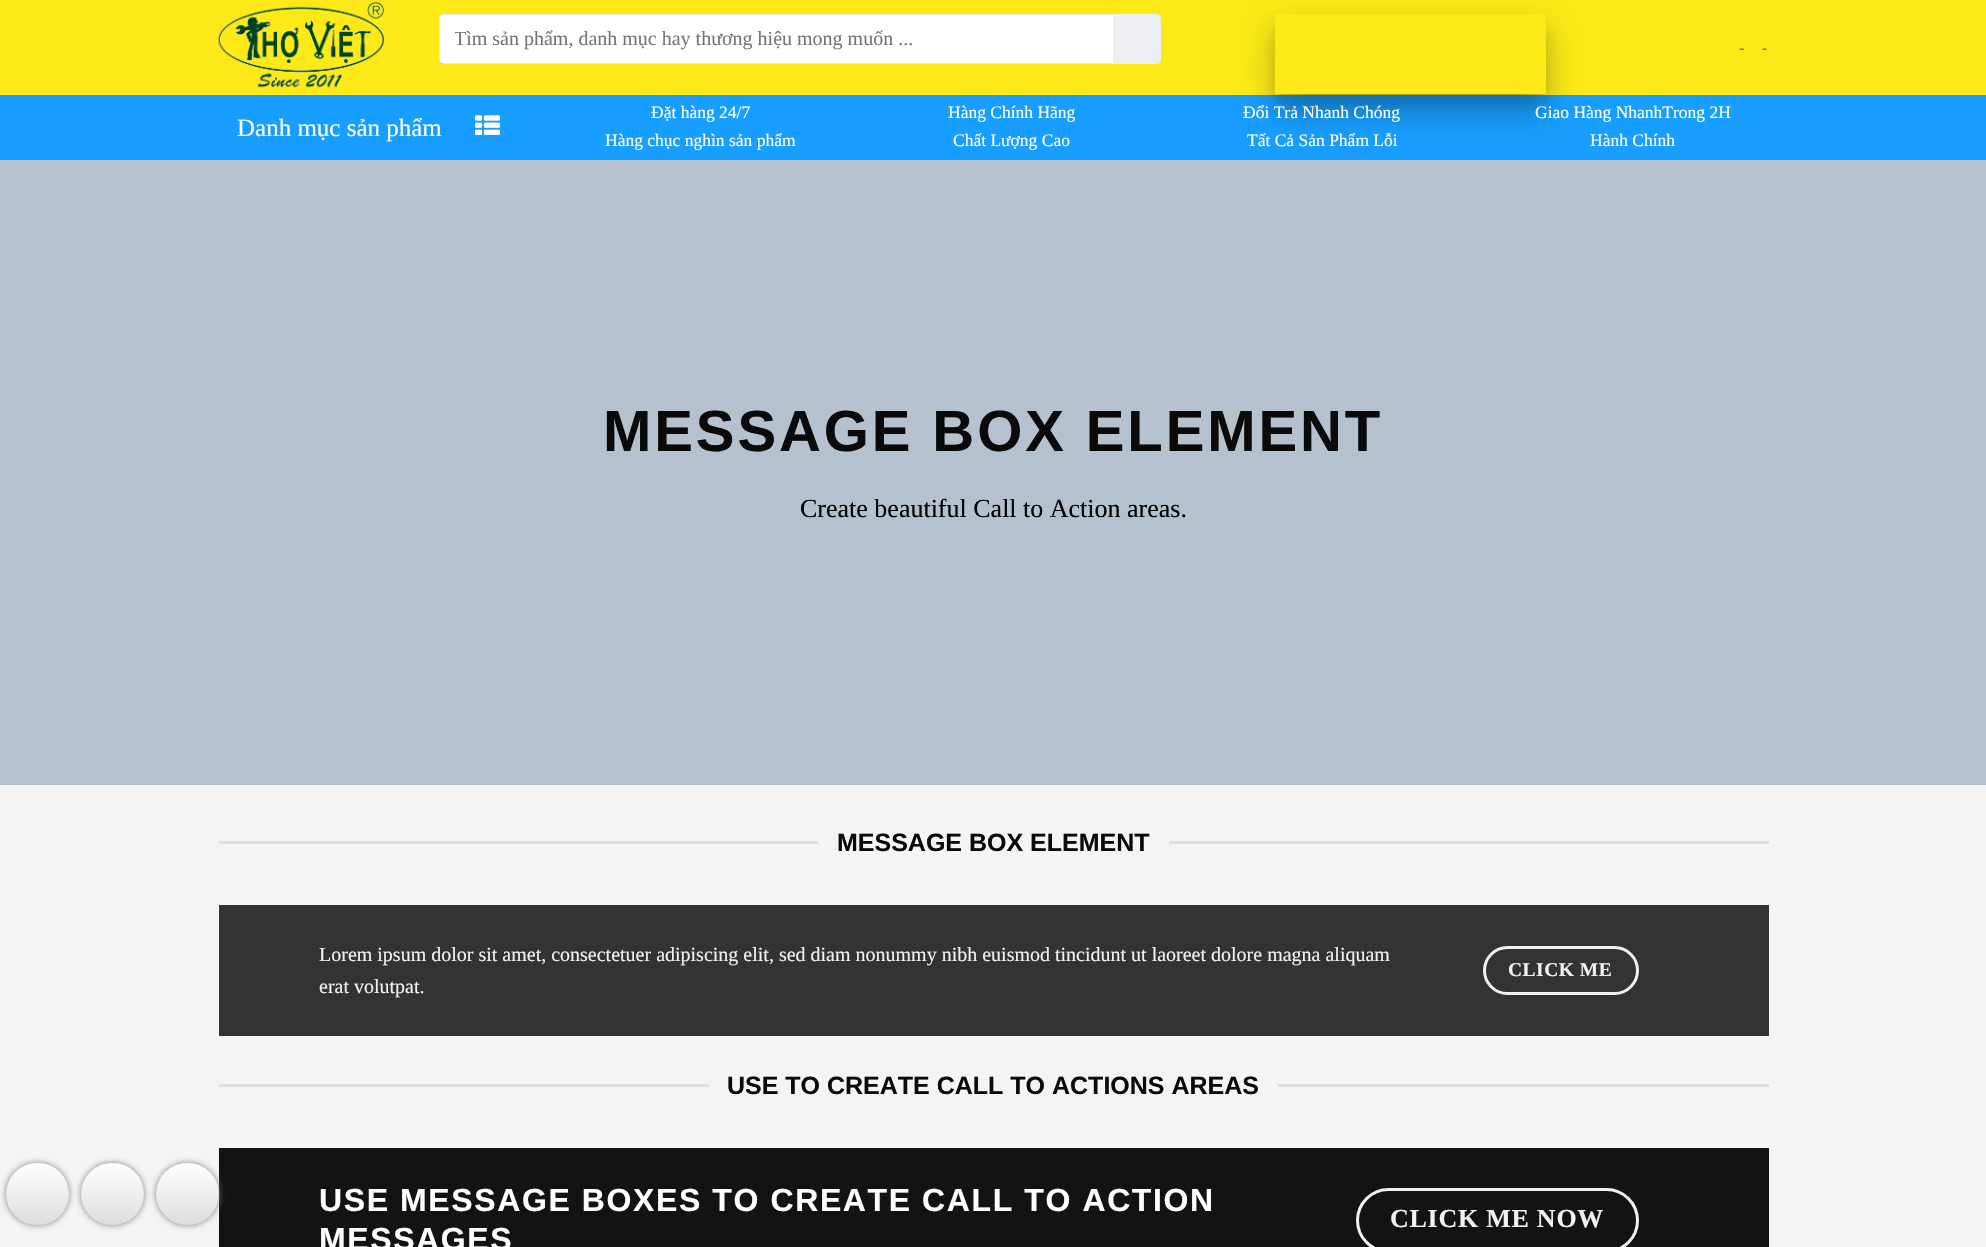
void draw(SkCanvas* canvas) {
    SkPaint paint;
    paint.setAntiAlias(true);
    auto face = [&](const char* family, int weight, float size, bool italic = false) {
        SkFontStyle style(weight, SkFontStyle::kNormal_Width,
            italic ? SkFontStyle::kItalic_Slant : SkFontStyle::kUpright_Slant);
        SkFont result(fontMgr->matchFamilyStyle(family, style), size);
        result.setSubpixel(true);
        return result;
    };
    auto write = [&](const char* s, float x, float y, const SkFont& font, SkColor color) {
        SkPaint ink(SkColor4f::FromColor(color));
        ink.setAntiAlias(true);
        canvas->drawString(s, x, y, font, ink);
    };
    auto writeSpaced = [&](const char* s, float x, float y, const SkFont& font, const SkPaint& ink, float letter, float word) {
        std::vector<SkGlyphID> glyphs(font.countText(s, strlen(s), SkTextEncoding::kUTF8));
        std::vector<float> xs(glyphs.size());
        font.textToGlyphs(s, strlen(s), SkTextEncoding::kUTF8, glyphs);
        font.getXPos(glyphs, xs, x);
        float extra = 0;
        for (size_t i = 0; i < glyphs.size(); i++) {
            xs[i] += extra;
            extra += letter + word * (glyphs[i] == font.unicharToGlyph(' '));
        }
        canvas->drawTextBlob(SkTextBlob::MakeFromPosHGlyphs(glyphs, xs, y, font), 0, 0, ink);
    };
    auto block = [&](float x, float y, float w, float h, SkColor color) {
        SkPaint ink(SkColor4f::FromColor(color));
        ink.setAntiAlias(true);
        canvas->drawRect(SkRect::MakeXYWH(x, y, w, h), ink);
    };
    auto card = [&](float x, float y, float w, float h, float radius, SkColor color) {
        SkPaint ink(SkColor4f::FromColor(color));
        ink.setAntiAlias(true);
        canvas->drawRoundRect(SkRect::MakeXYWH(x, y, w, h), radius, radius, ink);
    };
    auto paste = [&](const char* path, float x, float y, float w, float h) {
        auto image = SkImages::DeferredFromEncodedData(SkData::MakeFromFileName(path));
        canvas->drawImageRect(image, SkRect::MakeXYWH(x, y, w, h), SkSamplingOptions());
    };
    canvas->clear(SkColorSetRGB(244, 244, 244));
    block(0, 0, 1986, 95, SkColorSetRGB(252, 233, 23));
    paste("pic1.png", 218, 2, 166, 86);
    card(439, 14, 720, 50, 5, SK_ColorWHITE);
    paint.setStyle(SkPaint::kStroke_Style);
    paint.setStrokeWidth(1);
    paint.setColor(SkColorSetARGB(23, 0, 0, 0));
    canvas->drawRoundRect(SkRect::MakeXYWH(439.5f, 14.5f, 719, 49), 4.5f, 4.5f, paint);
    canvas->save();
    canvas->clipRect(SkRect::MakeXYWH(455, 28, 683, 22));
    auto kFont1 = face("Liberation Serif", 400, 20);
    write("Tìm sản phẩm, danh mục hay thương hiệu mong muốn ...", 454, 45, kFont1, SkColorSetRGB(117, 117, 117));
    canvas->restore();
    paint.setStyle(SkPaint::kFill_Style);
    paint.setColor(SkColorSetRGB(237, 238, 242));
    canvas->drawPath(SkPathBuilder().moveTo(1113, 14).lineTo(1156, 14).cubicTo(1159, 14, 1161, 16, 1161, 19).lineTo(1161, 59).cubicTo(1161, 62, 1159, 64, 1156, 64).lineTo(1113, 64).close().detach(), paint);
    block(0, 95, 1986, 65, SkColorSetRGB(24, 158, 255));
    canvas->save();
    canvas->clipPath(SkPathBuilder(SkPathFillType::kEvenOdd).moveTo(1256, 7).lineTo(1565, 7).lineTo(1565, 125).lineTo(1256, 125).close().moveTo(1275, 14).lineTo(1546, 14).lineTo(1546, 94).lineTo(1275, 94).close().detach(), true);
    paint.setColor(SkColorSetARGB(26, 0, 0, 0));
    paint.setMaskFilter(SkMaskFilter::MakeBlur(kNormal_SkBlurStyle, 6));
    canvas->drawRect(SkRect::MakeXYWH(1275, 26, 271, 80), paint);
    paint.setMaskFilter(nullptr);
    canvas->restore();
    block(0, 160, 1986, 625, SkColorSetRGB(182, 193, 206));
    canvas->save();
    canvas->clipPath(SkPathBuilder(SkPathFillType::kEvenOdd).moveTo(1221, 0).lineTo(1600, 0).lineTo(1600, 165).lineTo(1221, 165).close().moveTo(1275, 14).lineTo(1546, 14).lineTo(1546, 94).lineTo(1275, 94).close().detach(), true);
    paint.setColor(SkColorSetARGB(64, 0, 0, 0));
    paint.setMaskFilter(SkMaskFilter::MakeBlur(kNormal_SkBlurStyle, 17.5f));
    canvas->drawRect(SkRect::MakeXYWH(1275, 31, 271, 80), paint);
    paint.setMaskFilter(nullptr);
    canvas->restore();
    auto kFont2 = face("Liberation Serif", 700, 16);
    write("-", 1739, 53, kFont2, SkColorSetRGB(125, 122, 90));
    write("-", 1762, 53, kFont2, SkColorSetRGB(125, 122, 90));
    auto kFont3 = face("Liberation Serif", 400, 25);
    write("Danh mục sản phẩm", 237, 136, kFont3, SK_ColorWHITE);
    paste("pic2.png", 475, 115, 25, 20);
    auto kFont4 = face("Liberation Serif", 400, 17.5f);
    write("Đặt hàng 24/7", 651, 118, kFont4, SK_ColorWHITE);
    write("Hàng chục nghìn sản phẩm", 605, 146, kFont4, SK_ColorWHITE);
    write("Hàng Chính Hãng", 948, 118, kFont4, SK_ColorWHITE);
    write("Chất Lượng Cao", 953, 146, kFont4, SK_ColorWHITE);
    write("Đổi Trả Nhanh Chóng", 1243, 118, kFont4, SK_ColorWHITE);
    write("Tất Cả Sản Phẩm Lỗi", 1247, 146, kFont4, SK_ColorWHITE);
    write("Giao Hàng NhanhTrong 2H", 1535, 118, kFont4, SK_ColorWHITE);
    write("Hành Chính", 1590, 146, kFont4, SK_ColorWHITE);
    paint.setColor(SkColorSetRGB(128, 128, 128));
    paint.setMaskFilter(SkMaskFilter::MakeBlur(kNormal_SkBlurStyle, 3));
    canvas->drawRoundRect(SkRect::MakeXYWH(6, 1163, 63, 62), 31, 31, paint);
    paint.setMaskFilter(nullptr);
    {
        const SkColor colors[] = {SkColorSetRGB(221, 221, 221), SK_ColorWHITE};
        const float stops[] = {0, 1};
        const SkPoint ends[] = {{38, 1225}, {38, 1163}};
        paint.setShader(SkGradientShader::MakeLinear(ends, colors, stops, 2, SkTileMode::kClamp));
        paint.setAlpha(255);
    }
    canvas->drawRoundRect(SkRect::MakeXYWH(6, 1163, 63, 62), 31, 31, paint);
    paint.setShader(nullptr);
    paint.setColor(SkColorSetRGB(128, 128, 128));
    paint.setMaskFilter(SkMaskFilter::MakeBlur(kNormal_SkBlurStyle, 3));
    canvas->drawRoundRect(SkRect::MakeXYWH(81, 1163, 63, 62), 31, 31, paint);
    paint.setMaskFilter(nullptr);
    {
        const SkColor colors[] = {SkColorSetRGB(221, 221, 221), SK_ColorWHITE};
        const float stops[] = {0, 1};
        const SkPoint ends[] = {{113, 1225}, {113, 1163}};
        paint.setShader(SkGradientShader::MakeLinear(ends, colors, stops, 2, SkTileMode::kClamp));
        paint.setAlpha(255);
    }
    canvas->drawRoundRect(SkRect::MakeXYWH(81, 1163, 63, 62), 31, 31, paint);
    block(219, 1148, 1550, 99, SkColorSetRGB(19, 19, 19));
    paint.setShader(nullptr);
    paint.setColor(SkColorSetRGB(128, 128, 128));
    paint.setMaskFilter(SkMaskFilter::MakeBlur(kNormal_SkBlurStyle, 3));
    canvas->drawRoundRect(SkRect::MakeXYWH(156, 1163, 63, 62), 31, 31, paint);
    paint.setMaskFilter(nullptr);
    {
        const SkColor colors[] = {SkColorSetRGB(221, 221, 221), SK_ColorWHITE};
        const float stops[] = {0, 1};
        const SkPoint ends[] = {{188, 1225}, {188, 1163}};
        paint.setShader(SkGradientShader::MakeLinear(ends, colors, stops, 2, SkTileMode::kClamp));
        paint.setAlpha(255);
    }
    canvas->drawRoundRect(SkRect::MakeXYWH(156, 1163, 63, 62), 31, 31, paint);
    auto kFont5 = face("Liberation Sans", 700, 58);
    paint.setShader(nullptr);
    paint.setColor(SkColorSetRGB(10, 10, 10));
    writeSpaced("MESSAGE BOX ELEMENT", 603, 451, kFont5, paint, 2.9f, 0);
    auto kFont6 = face("Liberation Serif", 400, 26);
    write("Create beautiful Call to Action areas.", 800, 517, kFont6, SK_ColorBLACK);
    block(219, 841, 599, 3, SkColorSetRGB(221, 221, 221));
    auto kFont7 = face("Liberation Sans", 700, 25);
    write("MESSAGE BOX ELEMENT", 837, 851, kFont7, SkColorSetRGB(10, 10, 10));
    block(1169, 841, 600, 3, SkColorSetRGB(221, 221, 221));
    block(219, 905, 1550, 131, SkColorSetRGB(51, 51, 51));
    write("Lorem ipsum dolor sit amet, consectetuer adipiscing elit, sed diam nonummy nibh euismod tincidunt ut laoreet dolore magna aliquam", 319, 961, kFont1, SkColorSetRGB(241, 241, 241));
    write("erat volutpat.", 319, 993, kFont1, SkColorSetRGB(241, 241, 241));
    paint.setStyle(SkPaint::kStroke_Style);
    paint.setStrokeWidth(3);
    paint.setColor(SkColorSetRGB(241, 241, 241));
    canvas->drawRoundRect(SkRect::MakeXYWH(1484.5f, 947.5f, 153, 46), 23, 23, paint);
    auto kFont8 = face("Liberation Serif", 700, 19.5f);
    paint.setStyle(SkPaint::kFill_Style);
    writeSpaced("CLICK ME", 1508, 976, kFont8, paint, 0.5f, 0);
    block(219, 1084, 490, 3, SkColorSetRGB(221, 221, 221));
    write("USE TO CREATE CALL TO ACTIONS AREAS", 727, 1094, kFont7, SkColorSetRGB(10, 10, 10));
    block(1278, 1084, 491, 3, SkColorSetRGB(221, 221, 221));
    auto kFont9 = face("Liberation Sans", 700, 32);
    paint.setColor(SK_ColorWHITE);
    writeSpaced("USE MESSAGE BOXES TO CREATE CALL TO ACTION", 319, 1211, kFont9, paint, 1.6f, 0);
    writeSpaced("MESSAGES", 319, 1250, kFont9, paint, 1.6f, 0);
    paint.setStyle(SkPaint::kStroke_Style);
    paint.setColor(SkColorSetRGB(241, 241, 241));
    canvas->drawRoundRect(SkRect::MakeXYWH(1357.5f, 1189.5f, 280, 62), 31, 31, paint);
    auto kFont10 = face("Liberation Serif", 700, 26);
    paint.setStyle(SkPaint::kFill_Style);
    writeSpaced("CLICK ME NOW", 1390, 1227, kFont10, paint, 0.75f, 0);
}
